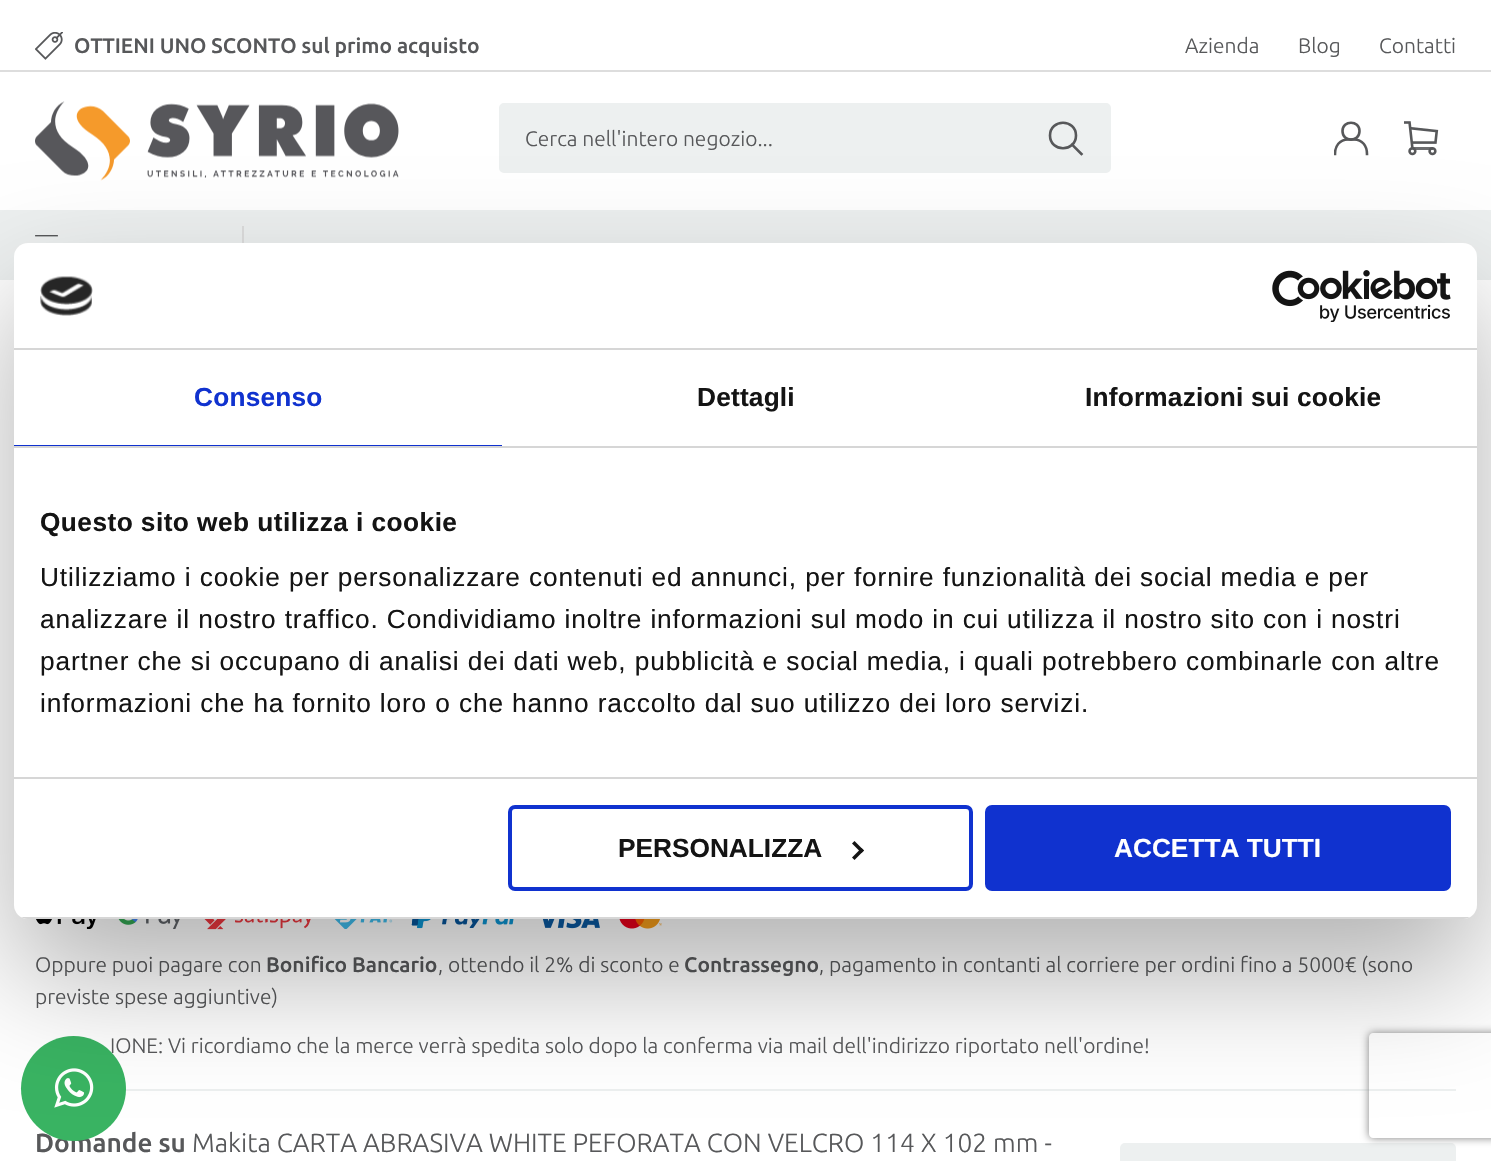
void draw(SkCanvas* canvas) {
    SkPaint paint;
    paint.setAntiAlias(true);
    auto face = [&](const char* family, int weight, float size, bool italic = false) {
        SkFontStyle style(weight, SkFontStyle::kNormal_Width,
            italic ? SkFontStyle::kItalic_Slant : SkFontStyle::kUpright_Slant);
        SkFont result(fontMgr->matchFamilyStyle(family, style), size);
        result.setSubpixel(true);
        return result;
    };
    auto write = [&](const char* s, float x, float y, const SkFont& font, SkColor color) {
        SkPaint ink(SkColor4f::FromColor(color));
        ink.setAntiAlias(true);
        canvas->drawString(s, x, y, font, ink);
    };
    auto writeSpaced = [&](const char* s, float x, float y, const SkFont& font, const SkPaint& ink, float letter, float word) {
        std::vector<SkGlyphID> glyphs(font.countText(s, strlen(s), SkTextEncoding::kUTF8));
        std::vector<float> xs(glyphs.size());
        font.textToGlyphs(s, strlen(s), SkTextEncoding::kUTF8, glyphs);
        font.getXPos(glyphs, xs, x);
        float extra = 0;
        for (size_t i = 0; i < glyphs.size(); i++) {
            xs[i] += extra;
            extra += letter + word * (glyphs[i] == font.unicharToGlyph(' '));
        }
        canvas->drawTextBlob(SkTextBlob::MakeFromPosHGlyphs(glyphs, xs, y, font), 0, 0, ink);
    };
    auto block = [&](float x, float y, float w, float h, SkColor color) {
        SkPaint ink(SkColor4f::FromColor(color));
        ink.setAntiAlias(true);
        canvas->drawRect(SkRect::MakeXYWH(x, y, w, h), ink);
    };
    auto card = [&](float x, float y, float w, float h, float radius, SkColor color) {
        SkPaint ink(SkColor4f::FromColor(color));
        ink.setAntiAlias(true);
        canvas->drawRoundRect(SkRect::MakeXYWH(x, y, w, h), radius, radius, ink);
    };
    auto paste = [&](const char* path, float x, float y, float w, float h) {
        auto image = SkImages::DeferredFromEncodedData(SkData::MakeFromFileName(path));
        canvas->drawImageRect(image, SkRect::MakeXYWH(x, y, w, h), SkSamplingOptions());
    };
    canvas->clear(SK_ColorWHITE);
    block(0, 70, 1491, 2, SkColorSetRGB(221, 221, 221));
    paste("pic1.png", 35, 32, 28, 28);
    auto kFont1 = face("Ubuntu", 500, 21);
    write("OTTIENI UNO SCONTO sul primo acquisto", 74, 53, kFont1, SkColorSetRGB(87, 88, 90));
    auto kFont2 = face("Ubuntu", 300, 21);
    write("Azienda", 1185, 53, kFont2, SkColorSetRGB(87, 88, 90));
    write("Blog", 1298, 53, kFont2, SkColorSetRGB(87, 88, 90));
    write("Contatti", 1379, 53, kFont2, SkColorSetRGB(87, 88, 90));
    paste("pic2.png", 35, 101, 364, 80);
    paint.setColor(SkColorSetRGB(237, 240, 240));
    canvas->drawRoundRect(SkRect::MakeXYWH(500, 104, 610, 68), 4, 4, paint);
    paint.setStyle(SkPaint::kStroke_Style);
    paint.setStrokeWidth(2);
    canvas->drawRoundRect(SkRect::MakeXYWH(500, 104, 610, 68), 4, 4, paint);
    write("Cerca nell'intero negozio...", 525, 146, kFont2, SkColorSetRGB(87, 88, 90));
    paint.setStrokeWidth(2.6f);
    paint.setStrokeCap(SkPaint::kSquare_Cap);
    paint.setColor(SkColorSetRGB(87, 88, 90));
    canvas->drawPath(SkPathBuilder().moveTo(1050, 135.5f).cubicTo(1050, 152.5f, 1076, 152.5f, 1076, 135.5f).cubicTo(1076, 118.5f, 1050, 118.5f, 1050, 135.5f).close().moveTo(1081.5f, 154).lineTo(1072, 144.5f).detach(), paint);
    canvas->drawPath(SkPathBuilder().moveTo(1359.5f, 131).cubicTo(1359.5f, 142.5f, 1342.5f, 142.5f, 1342.5f, 131).cubicTo(1342.5f, 120, 1359.5f, 120, 1359.5f, 131).close().detach(), paint);
    canvas->save();
    canvas->clipRect(SkRect::MakeXYWH(1334, 121, 35, 35));
    canvas->drawPath(SkPathBuilder().moveTo(1335, 154).cubicTo(1335, 146, 1339.5f, 139.5f, 1348, 139.5f).lineTo(1354, 139.5f).cubicTo(1362.5f, 139.5f, 1367, 146, 1367, 154).detach(), paint);
    canvas->restore();
    paste("pic3.png", 1404, 121, 35, 35);
    block(0, 210, 1491, 70, SkColorSetRGB(237, 240, 240));
    canvas->save();
    canvas->clipRect(SkRect::MakeXYWH(35, 235, 23, 19));
    paint.setStrokeWidth(1.8f);
    canvas->drawPath(SkPathBuilder().moveTo(36, 235.5f).lineTo(57, 235.5f).detach(), paint);
    canvas->restore();
    block(242, 226, 2, 17, SkColorSetRGB(221, 221, 221));
    block(125, 1089, 1331, 2, SkColorSetRGB(237, 240, 240));
    paste("pic4.png", 36, 919, 60, 10);
    paste("pic5.png", 118, 919, 62, 10);
    paste("pic6.png", 204, 919, 107, 11);
    paste("pic7.png", 334, 919, 59, 10);
    paste("pic8.png", 411, 919, 103, 10);
    paste("pic9.png", 542, 919, 58, 10);
    paste("pic10.png", 619, 919, 43, 10);
    write("Oppure puoi pagare con", 35, 972, kFont2, SkColorSetRGB(87, 88, 90));
    write("Bonifico Bancario", 266, 972, kFont1, SkColorSetRGB(87, 88, 90));
    write(", ottendo il 2% di sconto e", 438, 972, kFont2, SkColorSetRGB(87, 88, 90));
    write("Contrassegno", 684, 972, kFont1, SkColorSetRGB(87, 88, 90));
    write(", pagamento in contanti al corriere per ordini fino a 5000€ (sono", 819, 972, kFont2, SkColorSetRGB(87, 88, 90));
    write("previste spese aggiuntive)", 35, 1004, kFont2, SkColorSetRGB(87, 88, 90));
    write("IONE: Vi ricordiamo che la merce verrà spedita solo dopo la conferma via mail dell'indirizzo riportato nell'ordine!", 110, 1053, kFont2, SkColorSetRGB(87, 88, 90));
    auto kFont3 = face("Ubuntu", 500, 26.25f);
    write("Domande su", 35, 1152, kFont3, SkColorSetRGB(87, 88, 90));
    auto kFont4 = face("Ubuntu", 300, 26.25f);
    write("Makita CARTA ABRASIVA WHITE PEFORATA CON VELCRO 114 X 102 mm -", 192, 1152, kFont4, SkColorSetRGB(87, 88, 90));
    card(1120, 1143, 336, 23, 5, SkColorSetRGB(237, 240, 240));
    paint.setStyle(SkPaint::kFill_Style);
    paint.setColor(SkColorSetRGB(57, 179, 98));
    canvas->drawCircle(73.5f, 1088.5f, 52.5f, paint);
    paste("pic11.png", 54, 1068, 40, 40);
    paint.setColor(SkColorSetARGB(77, 0, 0, 0));
    paint.setMaskFilter(SkMaskFilter::MakeBlur(kNormal_SkBlurStyle, 59.5f));
    canvas->drawRoundRect(SkRect::MakeXYWH(14, 299, 1463, 676), 14, 14, paint);
    paint.setMaskFilter(nullptr);
    card(14, 243, 1463, 676, 14, SK_ColorWHITE);
    block(14, 348, 1463, 2, SkColorSetRGB(214, 214, 214));
    paste("pic12.png", 40, 276, 53, 40);
    paste("pic13.png", 1272, 270, 179, 52);
    block(14, 446, 1463, 2, SkColorSetRGB(214, 214, 214));
    block(14, 445, 488, 1, SkColorSetRGB(16, 50, 207));
    auto kFont5 = face("Liberation Sans", 700, 26.25f);
    paint.setColor(SkColorSetRGB(16, 50, 207));
    writeSpaced("Consenso", 194, 406, kFont5, paint, 0.2f, 0);
    paint.setColor(SkColorSetRGB(20, 20, 20));
    writeSpaced("Dettagli", 697, 406, kFont5, paint, 0.2f, 0);
    writeSpaced("Informazioni sui cookie", 1085, 406, kFont5, paint, 0.2f, 0);
    block(14, 777, 1463, 2, SkColorSetRGB(214, 214, 214));
    writeSpaced("Questo sito web utilizza i cookie", 40, 531, kFont5, paint, 0.45f, 0);
    auto kFont6 = face("Liberation Sans", 400, 26.25f);
    writeSpaced("Utilizziamo i cookie per personalizzare contenuti ed annunci, per fornire funzionalità dei social media e per", 40, 586, kFont6, paint, 0.88f, 0);
    writeSpaced("analizzare il nostro traffico. Condividiamo inoltre informazioni sul modo in cui utilizza il nostro sito con i nostri", 40, 628, kFont6, paint, 0.88f, 0);
    writeSpaced("partner che si occupano di analisi dei dati web, pubblicità e social media, i quali potrebbero combinarle con altre", 40, 670, kFont6, paint, 0.88f, 0);
    writeSpaced("informazioni che ha fornito loro o che hanno raccolto dal suo utilizzo dei loro servizi.", 40, 712, kFont6, paint, 0.88f, 0);
    canvas->save();
    canvas->clipPath(SkPathBuilder().moveTo(28, 243).lineTo(1463, 243).cubicTo(1470.5f, 243, 1477, 249.5f, 1477, 257).lineTo(1477, 905).cubicTo(1477, 912.5f, 1470.5f, 919, 1463, 919).lineTo(28, 919).cubicTo(20.5f, 919, 14, 912.5f, 14, 905).lineTo(14, 257).cubicTo(14, 249.5f, 20.5f, 243, 28, 243).close().detach(), true);
    block(14, 917, 1463, 2, SkColorSetRGB(214, 214, 214));
    canvas->restore();
    paint.setStyle(SkPaint::kStroke_Style);
    paint.setStrokeWidth(4);
    paint.setStrokeCap(SkPaint::kButt_Cap);
    paint.setColor(SkColorSetRGB(16, 50, 207));
    canvas->drawRoundRect(SkRect::MakeXYWH(510, 807, 461, 82), 5, 5, paint);
    write("PERSONALIZZA", 618, 857, kFont5, SkColorSetRGB(20, 20, 20));
    paint.setStyle(SkPaint::kFill_Style);
    paint.setColor(SkColorSetRGB(20, 20, 20));
    canvas->drawPath(SkPathBuilder().moveTo(854.5f, 841).lineTo(864, 850.5f).lineTo(861.5f, 853).lineTo(852, 843.5f).close().detach(), paint);
    canvas->drawPath(SkPathBuilder().moveTo(861.5f, 848).lineTo(864, 850.5f).lineTo(854.5f, 860).lineTo(852, 857.5f).close().detach(), paint);
    paint.setColor(SkColorSetRGB(16, 50, 207));
    canvas->drawRoundRect(SkRect::MakeXYWH(987, 807, 462, 82), 5, 5, paint);
    paint.setStyle(SkPaint::kStroke_Style);
    canvas->drawRoundRect(SkRect::MakeXYWH(987, 807, 462, 82), 5, 5, paint);
    write("ACCETTA TUTTI", 1114, 857, kFont5, SK_ColorWHITE);
    canvas->save();
    canvas->clipPath(SkPathBuilder(SkPathFillType::kEvenOdd).moveTo(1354, 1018).lineTo(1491, 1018).lineTo(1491, 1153).lineTo(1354, 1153).close().moveTo(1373, 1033).lineTo(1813, 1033).cubicTo(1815, 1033, 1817, 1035, 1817, 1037).lineTo(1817, 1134).cubicTo(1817, 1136, 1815, 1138, 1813, 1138).lineTo(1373, 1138).cubicTo(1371, 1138, 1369, 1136, 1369, 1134).lineTo(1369, 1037).cubicTo(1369, 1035, 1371, 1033, 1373, 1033).close().detach(), true);
    paint.setStyle(SkPaint::kFill_Style);
    paint.setColor(SkColorSetRGB(128, 128, 128));
    paint.setMaskFilter(SkMaskFilter::MakeBlur(kNormal_SkBlurStyle, 4.5f));
    canvas->drawRoundRect(SkRect::MakeXYWH(1369, 1033, 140, 105), 4, 4, paint);
    paint.setMaskFilter(nullptr);
    canvas->restore();
}
